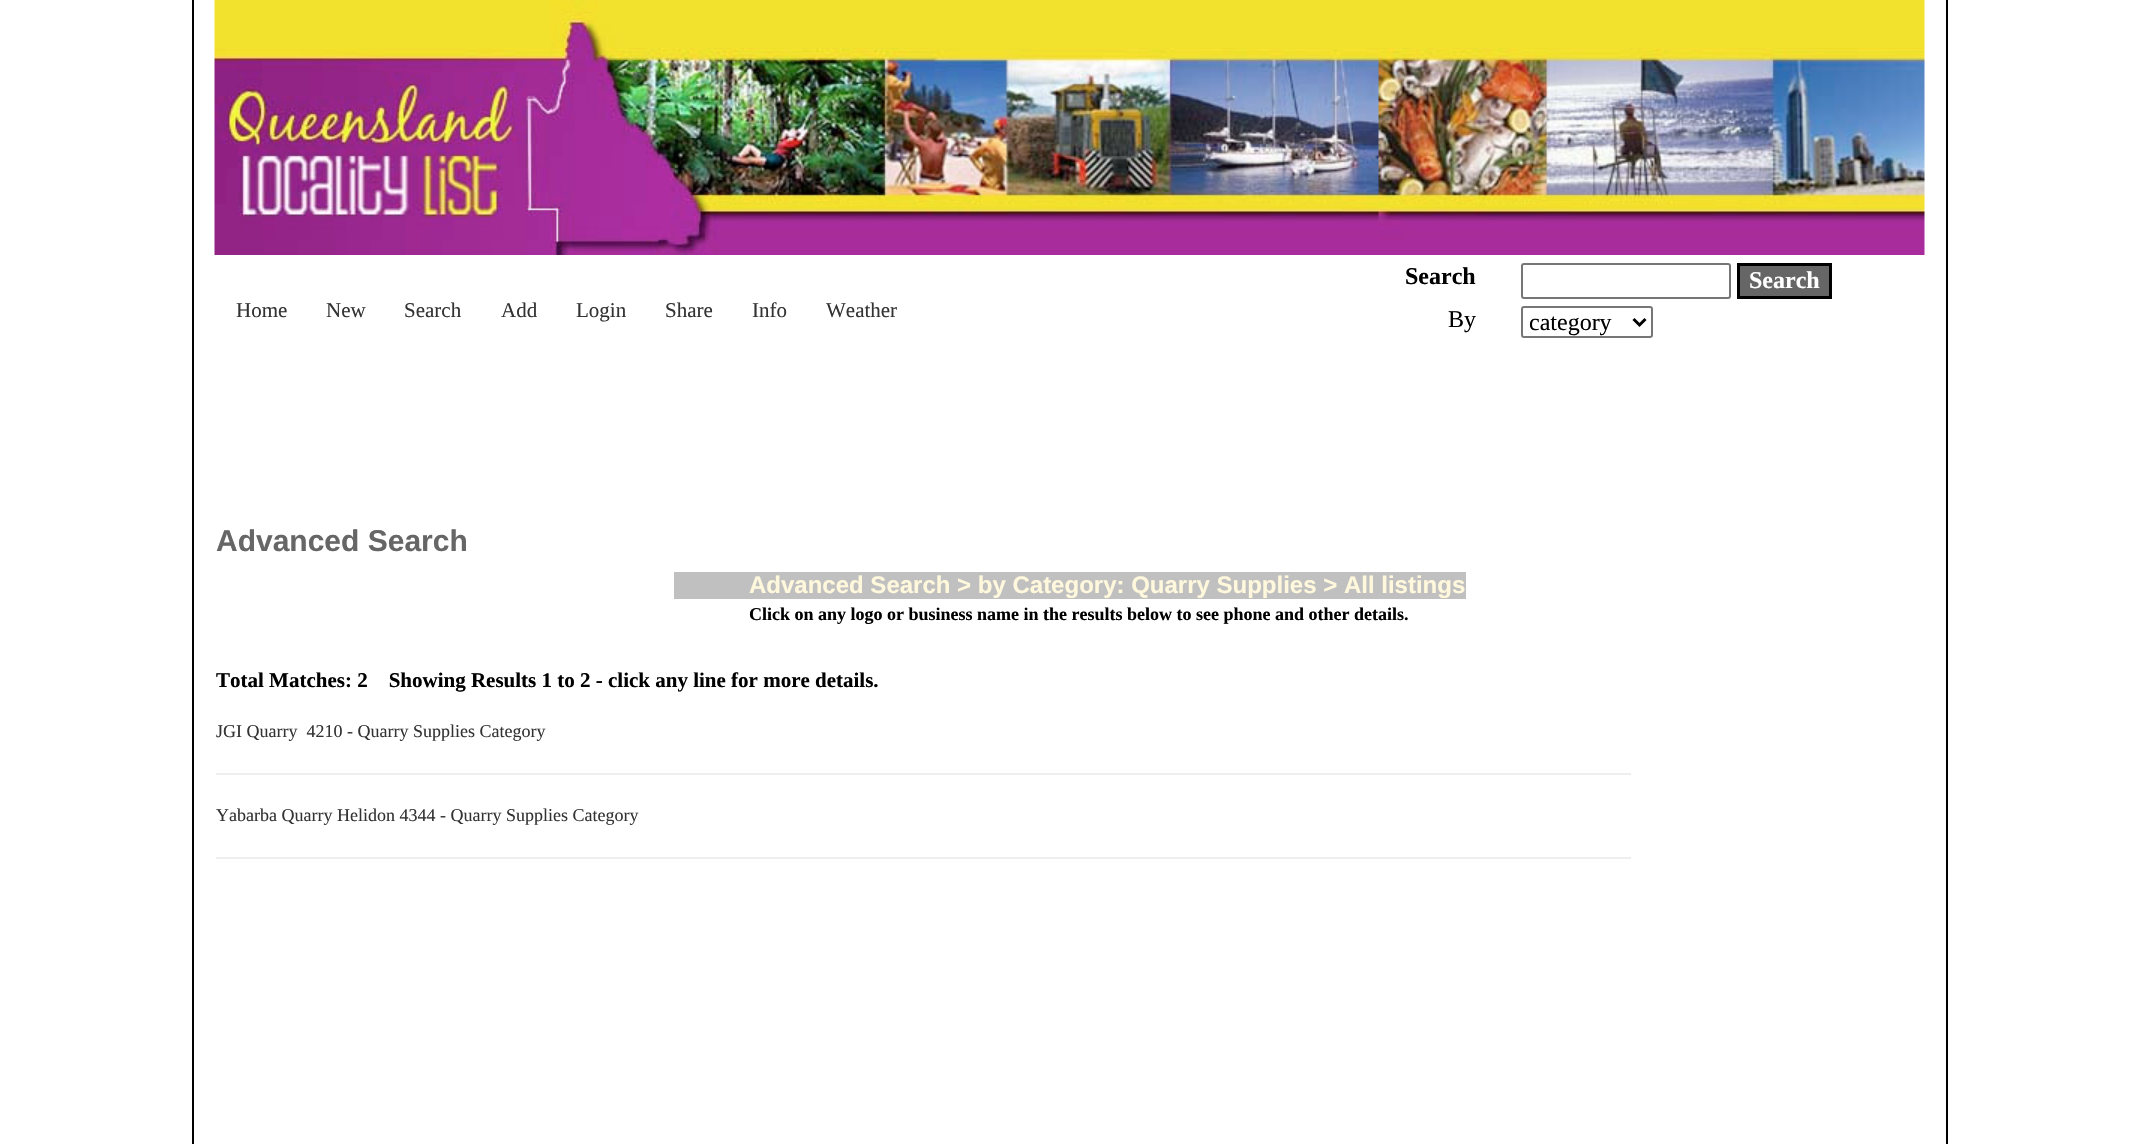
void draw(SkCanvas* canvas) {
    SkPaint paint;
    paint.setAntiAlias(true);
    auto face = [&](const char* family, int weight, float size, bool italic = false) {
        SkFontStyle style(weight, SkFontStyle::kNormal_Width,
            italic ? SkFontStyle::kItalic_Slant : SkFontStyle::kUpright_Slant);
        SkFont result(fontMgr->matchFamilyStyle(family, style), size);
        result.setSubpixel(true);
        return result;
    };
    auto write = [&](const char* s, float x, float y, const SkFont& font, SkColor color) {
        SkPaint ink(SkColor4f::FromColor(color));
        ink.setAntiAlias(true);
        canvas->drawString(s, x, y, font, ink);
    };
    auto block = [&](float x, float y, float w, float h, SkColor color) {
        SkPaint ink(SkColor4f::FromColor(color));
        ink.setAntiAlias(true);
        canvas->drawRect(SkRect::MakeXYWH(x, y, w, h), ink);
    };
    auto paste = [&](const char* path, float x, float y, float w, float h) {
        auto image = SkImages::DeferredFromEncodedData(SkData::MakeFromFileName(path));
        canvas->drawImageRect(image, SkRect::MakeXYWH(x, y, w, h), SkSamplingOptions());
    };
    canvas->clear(SK_ColorWHITE);
    block(1946, 0, 2, 1144, SK_ColorBLACK);
    block(192, 0, 2, 1144, SK_ColorBLACK);
    paste("pic1.png", 214, 0, 1711, 255);
    auto kFont1 = face("Liberation Serif", 400, 21);
    write("Home", 236, 317, kFont1, SkColorSetRGB(51, 51, 51));
    write("New", 326, 317, kFont1, SkColorSetRGB(51, 51, 51));
    write("Search", 404, 317, kFont1, SkColorSetRGB(51, 51, 51));
    write("Add", 501, 317, kFont1, SkColorSetRGB(51, 51, 51));
    write("Login", 576, 317, kFont1, SkColorSetRGB(51, 51, 51));
    write("Share", 665, 317, kFont1, SkColorSetRGB(51, 51, 51));
    write("Info", 752, 317, kFont1, SkColorSetRGB(51, 51, 51));
    write("Weather", 826, 317, kFont1, SkColorSetRGB(51, 51, 51));
    auto kFont2 = face("Liberation Serif", 700, 24);
    write("Search", 1405, 284, kFont2, SK_ColorBLACK);
    paint.setStyle(SkPaint::kStroke_Style);
    paint.setStrokeWidth(2);
    paint.setColor(SkColorSetRGB(118, 118, 118));
    canvas->drawRoundRect(SkRect::MakeXYWH(1522, 264, 208, 34), 2, 2, paint);
    paint.setStyle(SkPaint::kFill_Style);
    paint.setColor(SkColorSetRGB(102, 102, 102));
    canvas->drawRect(SkRect::MakeXYWH(1738.5f, 264.5f, 92, 33), paint);
    paint.setStyle(SkPaint::kStroke_Style);
    paint.setStrokeWidth(3);
    paint.setColor(SK_ColorBLACK);
    canvas->drawRect(SkRect::MakeXYWH(1738.5f, 264.5f, 92, 33), paint);
    write("Search", 1749, 288, kFont2, SK_ColorWHITE);
    auto kFont3 = face("Liberation Serif", 400, 24);
    write("By", 1448, 327, kFont3, SK_ColorBLACK);
    paint.setStrokeWidth(2);
    paint.setColor(SkColorSetRGB(118, 118, 118));
    canvas->drawRoundRect(SkRect::MakeXYWH(1522, 307, 130, 30), 2, 2, paint);
    paint.setStrokeWidth(3);
    paint.setColor(SK_ColorBLACK);
    canvas->drawPath(SkPathBuilder().moveTo(1633.5f, 319).lineTo(1639.5f, 325).lineTo(1645.5f, 319).detach(), paint);
    write("category", 1529, 330, kFont3, SK_ColorBLACK);
    auto kFont4 = face("Liberation Sans", 700, 30);
    write("Advanced Search", 216, 551, kFont4, SkColorSetRGB(102, 102, 102));
    block(674, 572, 792, 27, SkColorSetRGB(192, 192, 192));
    auto kFont5 = face("Liberation Sans", 700, 24);
    write("Advanced Search > by Category: Quarry Supplies > All listings", 749, 593, kFont5, SkColorSetRGB(255, 248, 220));
    auto kFont6 = face("Liberation Serif", 700, 18);
    write("Click on any logo or business name in the results below to see phone and other details.", 749, 620, kFont6, SK_ColorBLACK);
    auto kFont7 = face("Liberation Serif", 700, 21);
    write("Total Matches: 2    Showing Results 1 to 2 - click any line for more details.", 216, 687, kFont7, SK_ColorBLACK);
    auto kFont8 = face("Liberation Serif", 400, 18);
    write("JGI Quarry  4210 - Quarry Supplies Category", 216, 737, kFont8, SkColorSetRGB(51, 51, 51));
    block(216, 773, 1415, 2, SkColorSetRGB(238, 238, 238));
    write("Yabarba Quarry Helidon 4344 - Quarry Supplies Category", 216, 821, kFont8, SkColorSetRGB(51, 51, 51));
    block(216, 857, 1415, 2, SkColorSetRGB(238, 238, 238));
}
